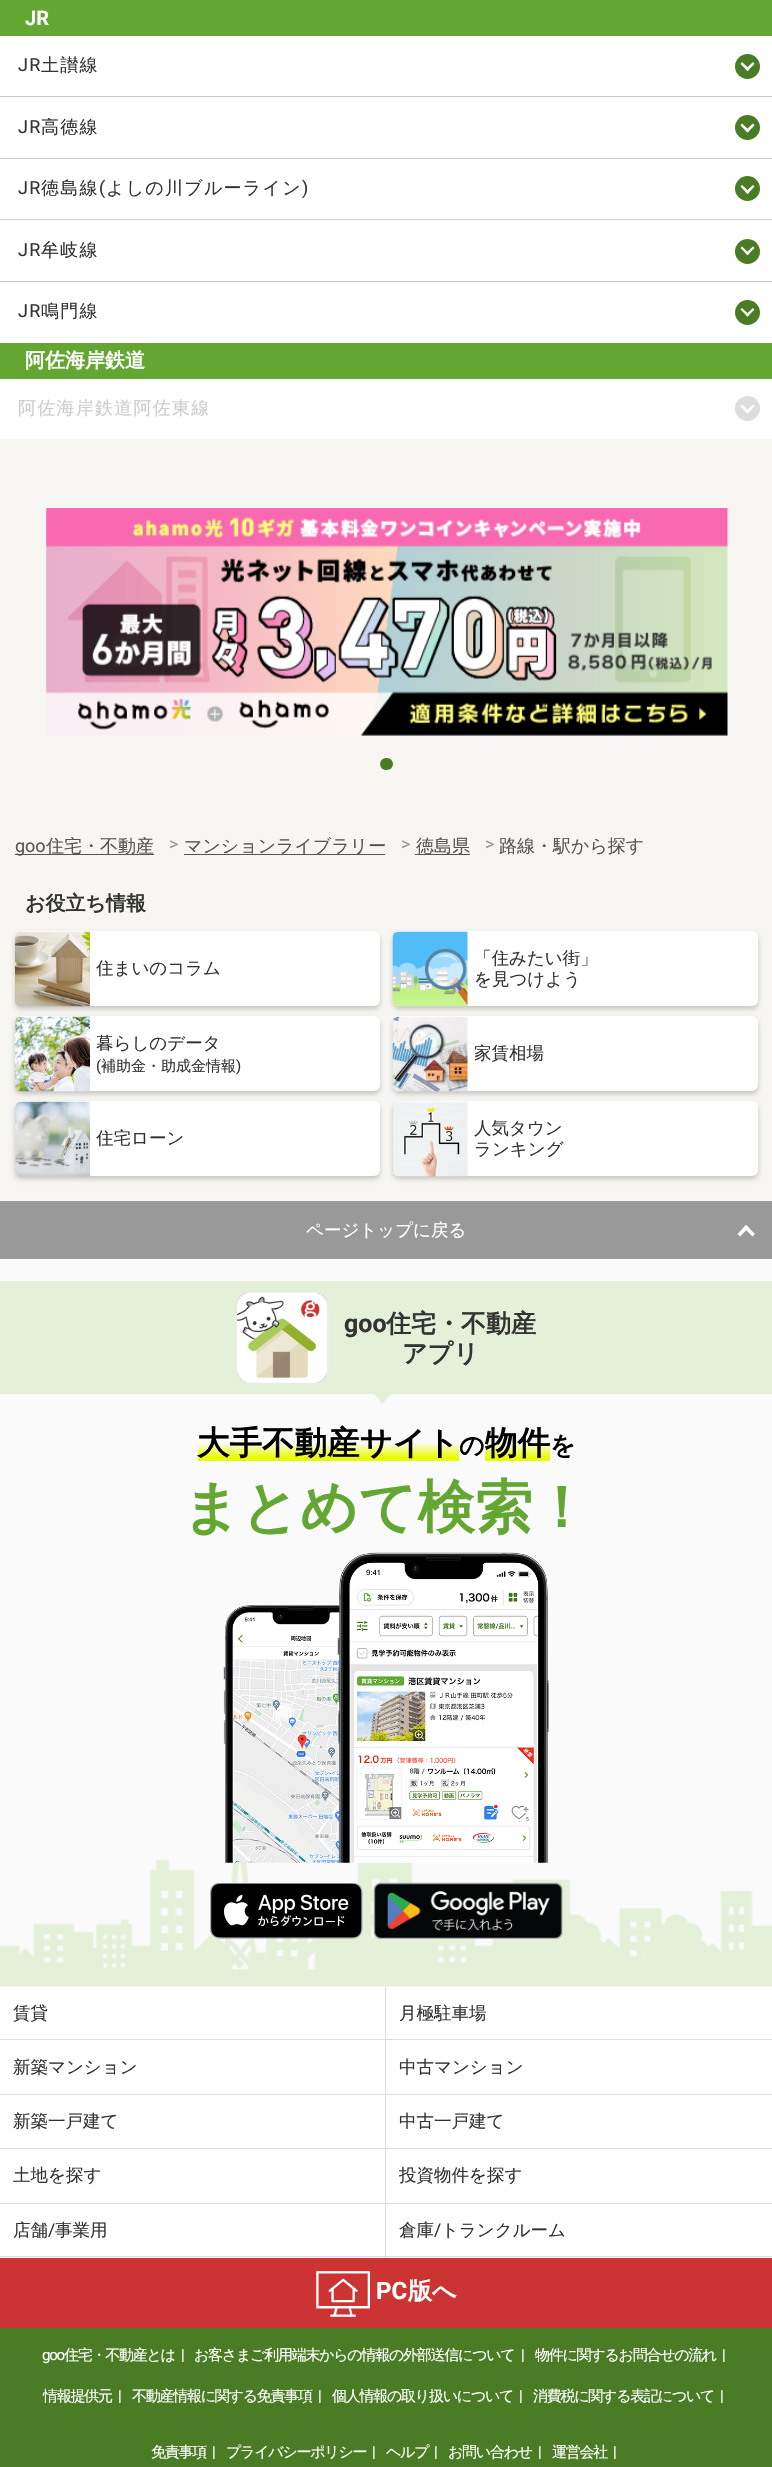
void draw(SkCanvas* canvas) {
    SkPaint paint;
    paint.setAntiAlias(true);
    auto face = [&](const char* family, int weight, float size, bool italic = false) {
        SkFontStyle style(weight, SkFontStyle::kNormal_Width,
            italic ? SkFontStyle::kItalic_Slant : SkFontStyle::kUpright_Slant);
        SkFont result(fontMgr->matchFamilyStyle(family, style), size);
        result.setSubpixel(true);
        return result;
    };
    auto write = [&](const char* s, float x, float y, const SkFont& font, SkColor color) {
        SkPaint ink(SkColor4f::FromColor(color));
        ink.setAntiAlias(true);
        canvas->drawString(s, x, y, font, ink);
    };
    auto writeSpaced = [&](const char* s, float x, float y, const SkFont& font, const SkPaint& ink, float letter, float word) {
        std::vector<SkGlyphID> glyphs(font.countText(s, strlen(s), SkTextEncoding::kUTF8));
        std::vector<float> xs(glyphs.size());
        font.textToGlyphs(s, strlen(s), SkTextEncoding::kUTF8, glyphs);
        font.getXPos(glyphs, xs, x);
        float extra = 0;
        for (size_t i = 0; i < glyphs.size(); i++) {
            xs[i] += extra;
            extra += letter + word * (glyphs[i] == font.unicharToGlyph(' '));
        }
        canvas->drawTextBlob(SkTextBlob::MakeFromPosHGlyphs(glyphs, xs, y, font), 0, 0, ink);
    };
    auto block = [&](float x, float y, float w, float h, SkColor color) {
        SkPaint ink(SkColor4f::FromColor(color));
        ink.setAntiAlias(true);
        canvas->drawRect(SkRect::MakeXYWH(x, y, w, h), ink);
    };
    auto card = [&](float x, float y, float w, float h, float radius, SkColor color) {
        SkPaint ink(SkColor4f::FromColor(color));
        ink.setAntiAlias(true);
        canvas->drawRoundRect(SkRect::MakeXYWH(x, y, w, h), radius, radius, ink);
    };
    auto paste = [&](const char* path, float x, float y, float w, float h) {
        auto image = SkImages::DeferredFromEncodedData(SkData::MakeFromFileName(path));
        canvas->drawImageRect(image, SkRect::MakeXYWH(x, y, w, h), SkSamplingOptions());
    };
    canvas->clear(SkColorSetRGB(247, 246, 242));
    block(0, 0, 772, 36, SkColorSetRGB(99, 166, 49));
    auto kFont1 = face("Roboto", 700, 20);
    write("JR", 25, 25, kFont1, SK_ColorWHITE);
    block(0, 36, 772, 60, SK_ColorWHITE);
    auto kFont2 = face("Roboto", 400, 18);
    paint.setColor(SkColorSetRGB(51, 51, 51));
    writeSpaced("JR", 18, 71, kFont2, paint, 1.25f, 0);
    auto kFont3 = face("WenQuanYi Zen Hei", 500, 18);
    writeSpaced("土讃線", 41, 71, kFont3, paint, 1.25f, 0);
    paint.setColor(SkColorSetRGB(74, 124, 37));
    canvas->drawCircle(747.5f, 66.5f, 12.5f, paint);
    paint.setColor(SK_ColorWHITE);
    canvas->drawPath(SkPathBuilder().moveTo(753, 62).lineTo(754.5f, 64).lineTo(747.5f, 71).lineTo(745.5f, 69).close().detach(), paint);
    canvas->drawPath(SkPathBuilder().moveTo(742, 62).lineTo(749.5f, 69).lineTo(747.5f, 71).lineTo(740.5f, 64).close().detach(), paint);
    block(0, 96, 772, 1, SkColorSetRGB(204, 204, 204));
    block(0, 98, 772, 60, SK_ColorWHITE);
    paint.setColor(SkColorSetRGB(51, 51, 51));
    writeSpaced("JR", 18, 133, kFont2, paint, 1.25f, 0);
    writeSpaced("高徳線", 41, 133, kFont3, paint, 1.25f, 0);
    paint.setColor(SkColorSetRGB(74, 124, 37));
    canvas->drawCircle(747.5f, 127.5f, 12.5f, paint);
    paint.setColor(SK_ColorWHITE);
    canvas->drawPath(SkPathBuilder().moveTo(753, 123.5f).lineTo(754.5f, 125.5f).lineTo(747.5f, 132.5f).lineTo(745.5f, 130.5f).close().detach(), paint);
    canvas->drawPath(SkPathBuilder().moveTo(742, 123.5f).lineTo(749.5f, 130.5f).lineTo(747.5f, 132.5f).lineTo(740.5f, 125.5f).close().detach(), paint);
    block(0, 158, 772, 1, SkColorSetRGB(204, 204, 204));
    block(0, 159, 772, 60, SK_ColorWHITE);
    paint.setColor(SkColorSetRGB(51, 51, 51));
    writeSpaced("JR", 18, 194, kFont2, paint, 1.25f, 0);
    writeSpaced("徳島線", 41, 194, kFont3, paint, 1.25f, 0);
    writeSpaced("(", 99, 194, kFont2, paint, 1.25f, 0);
    writeSpaced("よしの川ブルーライン", 106, 194, kFont3, paint, 1.25f, 0);
    writeSpaced(")", 302, 194, kFont2, paint, 1.25f, 0);
    paint.setColor(SkColorSetRGB(74, 124, 37));
    canvas->drawCircle(747.5f, 188.5f, 12.5f, paint);
    paint.setColor(SK_ColorWHITE);
    canvas->drawPath(SkPathBuilder().moveTo(753, 185).lineTo(754.5f, 186.5f).lineTo(747.5f, 194).lineTo(745.5f, 192).close().detach(), paint);
    canvas->drawPath(SkPathBuilder().moveTo(742, 185).lineTo(749.5f, 192).lineTo(747.5f, 194).lineTo(740.5f, 186.5f).close().detach(), paint);
    block(0, 219, 772, 1, SkColorSetRGB(204, 204, 204));
    block(0, 220, 772, 61, SK_ColorWHITE);
    paint.setColor(SkColorSetRGB(51, 51, 51));
    writeSpaced("JR", 18, 256, kFont2, paint, 1.25f, 0);
    writeSpaced("牟岐線", 41, 256, kFont3, paint, 1.25f, 0);
    paint.setColor(SkColorSetRGB(74, 124, 37));
    canvas->drawCircle(747.5f, 251.5f, 12.5f, paint);
    paint.setColor(SK_ColorWHITE);
    canvas->drawPath(SkPathBuilder().moveTo(753, 246.5f).lineTo(754.5f, 248).lineTo(747.5f, 255).lineTo(745.5f, 253.5f).close().detach(), paint);
    canvas->drawPath(SkPathBuilder().moveTo(742, 246.5f).lineTo(749.5f, 253.5f).lineTo(747.5f, 255).lineTo(740.5f, 248).close().detach(), paint);
    block(0, 281, 772, 1, SkColorSetRGB(204, 204, 204));
    block(0, 283, 772, 60, SK_ColorWHITE);
    paint.setColor(SkColorSetRGB(51, 51, 51));
    writeSpaced("JR", 18, 317, kFont2, paint, 1.25f, 0);
    writeSpaced("鳴門線", 41, 317, kFont3, paint, 1.25f, 0);
    paint.setColor(SkColorSetRGB(74, 124, 37));
    canvas->drawCircle(747.5f, 312.5f, 12.5f, paint);
    paint.setColor(SK_ColorWHITE);
    canvas->drawPath(SkPathBuilder().moveTo(753, 308).lineTo(754.5f, 309.5f).lineTo(747.5f, 316.5f).lineTo(745.5f, 315).close().detach(), paint);
    canvas->drawPath(SkPathBuilder().moveTo(742, 308).lineTo(749.5f, 315).lineTo(747.5f, 316.5f).lineTo(740.5f, 309.5f).close().detach(), paint);
    block(0, 343, 772, 36, SkColorSetRGB(99, 166, 49));
    auto kFont4 = face("WenQuanYi Zen Hei", 700, 20);
    write("阿佐海岸鉄道", 25, 367, kFont4, SK_ColorWHITE);
    block(0, 379, 772, 60, SK_ColorWHITE);
    paint.setColor(SkColorSetRGB(204, 204, 204));
    writeSpaced("阿佐海岸鉄道阿佐東線", 18, 414, kFont3, paint, 1.25f, 0);
    paint.setColor(SkColorSetRGB(221, 221, 221));
    canvas->drawCircle(747.5f, 408.5f, 12.5f, paint);
    paint.setColor(SK_ColorWHITE);
    canvas->drawPath(SkPathBuilder().moveTo(753, 404.5f).lineTo(754.5f, 406.5f).lineTo(747.5f, 413.5f).lineTo(745.5f, 411.5f).close().detach(), paint);
    canvas->drawPath(SkPathBuilder().moveTo(742, 404.5f).lineTo(749.5f, 411.5f).lineTo(747.5f, 413.5f).lineTo(740.5f, 406.5f).close().detach(), paint);
    paste("pic1.png", 46, 508, 682, 228);
    card(380, 758, 13, 12, 6, SkColorSetRGB(74, 124, 37));
    block(15, 854, 139, 1, SkColorSetRGB(85, 85, 85));
    write("goo", 15, 852, kFont2, SkColorSetRGB(85, 85, 85));
    write("住宅・不動産", 46, 852, kFont3, SkColorSetRGB(85, 85, 85));
    write(">", 169, 850, kFont2, SkColorSetRGB(153, 153, 153));
    block(184, 854, 201, 1, SkColorSetRGB(85, 85, 85));
    write("マンションライブラリー", 184, 852, kFont3, SkColorSetRGB(85, 85, 85));
    write(">", 401, 850, kFont2, SkColorSetRGB(153, 153, 153));
    block(415, 854, 55, 1, SkColorSetRGB(85, 85, 85));
    write("徳島県", 416, 852, kFont3, SkColorSetRGB(85, 85, 85));
    write(">", 485, 850, kFont2, SkColorSetRGB(153, 153, 153));
    write("路線・駅から探す", 499, 852, kFont3, SkColorSetRGB(85, 85, 85));
    write("お役立ち情報", 25, 910, kFont4, SkColorSetRGB(51, 51, 51));
    paint.setColor(SkColorSetARGB(51, 0, 0, 0));
    paint.setMaskFilter(SkMaskFilter::MakeBlur(kNormal_SkBlurStyle, 2.5f));
    canvas->drawRoundRect(SkRect::MakeXYWH(15, 934, 365, 75), 6, 6, paint);
    paint.setMaskFilter(nullptr);
    card(15, 931, 365, 75, 6, SK_ColorWHITE);
    paste("pic2.png", 15, 931, 75, 76);
    auto kFont5 = face("WenQuanYi Zen Hei", 500, 17.5f);
    write("住まいのコラム", 96, 974, kFont5, SkColorSetRGB(51, 51, 51));
    paint.setMaskFilter(SkMaskFilter::MakeBlur(kNormal_SkBlurStyle, 2.5f));
    canvas->drawRoundRect(SkRect::MakeXYWH(393, 934, 365, 75), 6, 6, paint);
    paint.setMaskFilter(nullptr);
    card(393, 931, 365, 75, 6, SK_ColorWHITE);
    paste("pic3.png", 392, 931, 76, 76);
    write("「住みたい街」", 474, 964, kFont5, SkColorSetRGB(51, 51, 51));
    write("を見つけよう", 474, 985, kFont5, SkColorSetRGB(51, 51, 51));
    paint.setMaskFilter(SkMaskFilter::MakeBlur(kNormal_SkBlurStyle, 2.5f));
    canvas->drawRoundRect(SkRect::MakeXYWH(15, 1019, 365, 75), 6, 6, paint);
    paint.setMaskFilter(nullptr);
    card(15, 1016, 365, 75, 6, SK_ColorWHITE);
    paste("pic4.png", 15, 1016, 75, 76);
    write("暮らしのデータ", 96, 1049, kFont5, SkColorSetRGB(51, 51, 51));
    auto kFont6 = face("Roboto", 400, 15);
    write("(", 96, 1071, kFont6, SkColorSetRGB(51, 51, 51));
    auto kFont7 = face("WenQuanYi Zen Hei", 500, 15);
    write("補助金・助成金情報", 101, 1071, kFont7, SkColorSetRGB(51, 51, 51));
    write(")", 236, 1071, kFont6, SkColorSetRGB(51, 51, 51));
    paint.setMaskFilter(SkMaskFilter::MakeBlur(kNormal_SkBlurStyle, 2.5f));
    canvas->drawRoundRect(SkRect::MakeXYWH(393, 1019, 365, 75), 6, 6, paint);
    paint.setMaskFilter(nullptr);
    card(393, 1016, 365, 75, 6, SK_ColorWHITE);
    paste("pic5.png", 392, 1016, 76, 76);
    write("家賃相場", 474, 1059, kFont5, SkColorSetRGB(51, 51, 51));
    paint.setMaskFilter(SkMaskFilter::MakeBlur(kNormal_SkBlurStyle, 2.5f));
    canvas->drawRoundRect(SkRect::MakeXYWH(15, 1104, 365, 75), 6, 6, paint);
    paint.setMaskFilter(nullptr);
    card(15, 1101, 365, 75, 6, SK_ColorWHITE);
    paste("pic6.png", 15, 1101, 75, 76);
    write("住宅ローン", 96, 1144, kFont5, SkColorSetRGB(51, 51, 51));
    paint.setMaskFilter(SkMaskFilter::MakeBlur(kNormal_SkBlurStyle, 2.5f));
    canvas->drawRoundRect(SkRect::MakeXYWH(393, 1104, 365, 75), 6, 6, paint);
    paint.setMaskFilter(nullptr);
    card(393, 1101, 365, 75, 6, SK_ColorWHITE);
    paste("pic7.png", 393, 1101, 75, 76);
    write("人気タウン", 474, 1134, kFont5, SkColorSetRGB(51, 51, 51));
    write("ランキング", 474, 1155, kFont5, SkColorSetRGB(51, 51, 51));
    block(0, 1201, 772, 58, SkColorSetRGB(153, 153, 153));
    write("ページトップに戻る", 306, 1236, kFont5, SK_ColorWHITE);
    paint.setColor(SK_ColorWHITE);
    canvas->drawPath(SkPathBuilder().moveTo(737.5f, 1234).lineTo(746, 1225).lineTo(749, 1227.5f).lineTo(740, 1236.5f).close().detach(), paint);
    canvas->drawPath(SkPathBuilder().moveTo(743.5f, 1227.5f).lineTo(746, 1225).lineTo(755, 1234).lineTo(752.5f, 1236.5f).close().detach(), paint);
    block(0, 1259, 772, 727, SkColorSetRGB(250, 250, 250));
    block(0, 1281, 772, 113, SkColorSetRGB(228, 240, 216));
    paste("pic8.png", 236, 1291, 93, 93);
    auto kFont8 = face("Roboto", 700, 25);
    write("goo", 344, 1332, kFont8, SkColorSetRGB(51, 51, 51));
    auto kFont9 = face("WenQuanYi Zen Hei", 700, 25);
    write("住宅・不動産", 386, 1332, kFont9, SkColorSetRGB(51, 51, 51));
    write("アプリ", 402, 1362, kFont9, SkColorSetRGB(51, 51, 51));
    paint.setColor(SkColorSetRGB(228, 240, 216));
    canvas->drawPath(SkPathBuilder().moveTo(367.5f, 1386).lineTo(397.5f, 1386).lineTo(382.5f, 1404).close().detach(), paint);
    {
        const SkColor colors[] = {SkColorSetRGB(250, 250, 250), SkColorSetRGB(232, 253, 0)};
        const float stops[] = {0.5f, 0.9f};
        const SkPoint ends[] = {{328, 1424}, {328, 1461}};
        paint.setShader(SkGradientShader::MakeLinear(ends, colors, stops, 2, SkTileMode::kClamp));
        paint.setAlpha(255);
    }
    canvas->drawRect(SkRect::MakeXYWH(198, 1443, 261, 18), paint);
    auto kFont10 = face("WenQuanYi Zen Hei", 700, 32.5f);
    write("大手不動産サイト", 197, 1454, kFont10, SK_ColorBLACK);
    write("の", 459, 1454, kFont9, SK_ColorBLACK);
    {
        const SkColor colors[] = {SkColorSetRGB(250, 250, 250), SkColorSetRGB(232, 253, 0)};
        const float stops[] = {0.5f, 0.9f};
        const SkPoint ends[] = {{518, 1424}, {518, 1461}};
        paint.setShader(SkGradientShader::MakeLinear(ends, colors, stops, 2, SkTileMode::kClamp));
        paint.setAlpha(255);
    }
    canvas->drawRect(SkRect::MakeXYWH(485, 1443, 65, 18), paint);
    write("物件", 485, 1454, kFont10, SK_ColorBLACK);
    write("を", 550, 1454, kFont9, SK_ColorBLACK);
    auto kFont11 = face("WenQuanYi Zen Hei", 700, 57.5f);
    write("まとめて検索！", 182, 1527, kFont11, SkColorSetRGB(99, 166, 49));
    block(0, 1986, 385, 53, SK_ColorWHITE);
    block(385, 1986, 1, 272, SkColorSetRGB(221, 221, 221));
    block(386, 1986, 386, 53, SK_ColorWHITE);
    paste("pic12.png", 0, 1859, 772, 128);
    paste("pic9.png", 223, 1552, 326, 311);
    paste("pic10.png", 210, 1883, 153, 56);
    paste("pic11.png", 373, 1882, 190, 57);
    block(0, 2039, 772, 1, SkColorSetRGB(221, 221, 221));
    write("賃貸", 13, 2019, kFont5, SkColorSetRGB(51, 51, 51));
    write("月極駐車場", 399, 2019, kFont5, SkColorSetRGB(51, 51, 51));
    block(0, 2040, 385, 54, SK_ColorWHITE);
    block(0, 2094, 772, 1, SkColorSetRGB(221, 221, 221));
    write("新築マンション", 13, 2073, kFont5, SkColorSetRGB(51, 51, 51));
    block(386, 2040, 386, 54, SK_ColorWHITE);
    write("中古マンション", 399, 2073, kFont5, SkColorSetRGB(51, 51, 51));
    block(0, 2095, 385, 53, SK_ColorWHITE);
    block(0, 2148, 772, 1, SkColorSetRGB(221, 221, 221));
    write("新築一戸建て", 13, 2127, kFont5, SkColorSetRGB(51, 51, 51));
    block(386, 2095, 386, 53, SK_ColorWHITE);
    write("中古一戸建て", 399, 2127, kFont5, SkColorSetRGB(51, 51, 51));
    block(0, 2149, 385, 54, SK_ColorWHITE);
    block(0, 2203, 772, 1, SkColorSetRGB(221, 221, 221));
    write("土地を探す", 13, 2181, kFont5, SkColorSetRGB(51, 51, 51));
    block(386, 2149, 386, 54, SK_ColorWHITE);
    write("投資物件を探す", 399, 2181, kFont5, SkColorSetRGB(51, 51, 51));
    block(0, 2204, 385, 54, SK_ColorWHITE);
    block(0, 2256, 386, 1, SkColorSetRGB(221, 221, 221));
    write("店舗", 13, 2236, kFont5, SkColorSetRGB(51, 51, 51));
    auto kFont12 = face("Roboto", 400, 17.5f);
    write("/", 48, 2236, kFont12, SkColorSetRGB(51, 51, 51));
    write("事業用", 55, 2236, kFont5, SkColorSetRGB(51, 51, 51));
    block(386, 2204, 386, 54, SK_ColorWHITE);
    block(386, 2256, 386, 1, SkColorSetRGB(221, 221, 221));
    write("倉庫", 399, 2236, kFont5, SkColorSetRGB(51, 51, 51));
    write("/", 434, 2236, kFont12, SkColorSetRGB(51, 51, 51));
    write("トランクルーム", 441, 2236, kFont5, SkColorSetRGB(51, 51, 51));
    block(0, 2258, 772, 70, SkColorSetRGB(204, 51, 51));
    paste("pic13.png", 316, 2271, 54, 46);
    auto kFont13 = face("Roboto", 700, 24);
    write("PC", 376, 2299, kFont13, SK_ColorWHITE);
    auto kFont14 = face("WenQuanYi Zen Hei", 700, 24);
    write("版へ", 408, 2299, kFont14, SK_ColorWHITE);
    block(0, 2328, 772, 139, SkColorSetRGB(74, 124, 37));
    paint.setShader(nullptr);
    paint.setColor(SK_ColorWHITE);
    writeSpaced("goo", 42, 2360, kFont6, paint, -1.25f, 0);
    writeSpaced("住宅・不動産とは", 64, 2360, kFont7, paint, -1.25f, 0);
    writeSpaced("|", 181, 2360, kFont6, paint, -1.25f, 0);
    writeSpaced("お客さまご利用端末からの情報の外部送信について", 194, 2360, kFont7, paint, -1.25f, 0);
    writeSpaced("|", 521, 2360, kFont6, paint, -1.25f, 0);
    writeSpaced("物件に関するお問合せの流れ", 535, 2360, kFont7, paint, -1.25f, 0);
    writeSpaced("|", 722, 2360, kFont6, paint, -1.25f, 0);
    writeSpaced("情報提供元", 43, 2401, kFont7, paint, -1.25f, 0);
    writeSpaced("|", 118, 2401, kFont6, paint, -1.25f, 0);
    writeSpaced("不動産情報に関する免責事項", 132, 2401, kFont7, paint, -1.25f, 0);
    writeSpaced("|", 318, 2401, kFont6, paint, -1.25f, 0);
    writeSpaced("個人情報の取り扱いについて", 332, 2401, kFont7, paint, -1.25f, 0);
    writeSpaced("|", 519, 2401, kFont6, paint, -1.25f, 0);
    writeSpaced("消費税に関する表記について", 533, 2401, kFont7, paint, -1.25f, 0);
    writeSpaced("|", 720, 2401, kFont6, paint, -1.25f, 0);
    writeSpaced("免責事項", 151, 2457, kFont7, paint, -1.25f, 0);
    writeSpaced("|", 212, 2457, kFont6, paint, -1.25f, 0);
    writeSpaced("プライバシーポリシー", 226, 2457, kFont7, paint, -1.25f, 0);
    writeSpaced("|", 372, 2457, kFont6, paint, -1.25f, 0);
    writeSpaced("ヘルプ", 386, 2457, kFont7, paint, -1.25f, 0);
    writeSpaced("|", 434, 2457, kFont6, paint, -1.25f, 0);
    writeSpaced("お問い合わせ", 448, 2457, kFont7, paint, -1.25f, 0);
    writeSpaced("|", 538, 2457, kFont6, paint, -1.25f, 0);
    writeSpaced("運営会社", 552, 2457, kFont7, paint, -1.25f, 0);
    writeSpaced("|", 613, 2457, kFont6, paint, -1.25f, 0);
}
